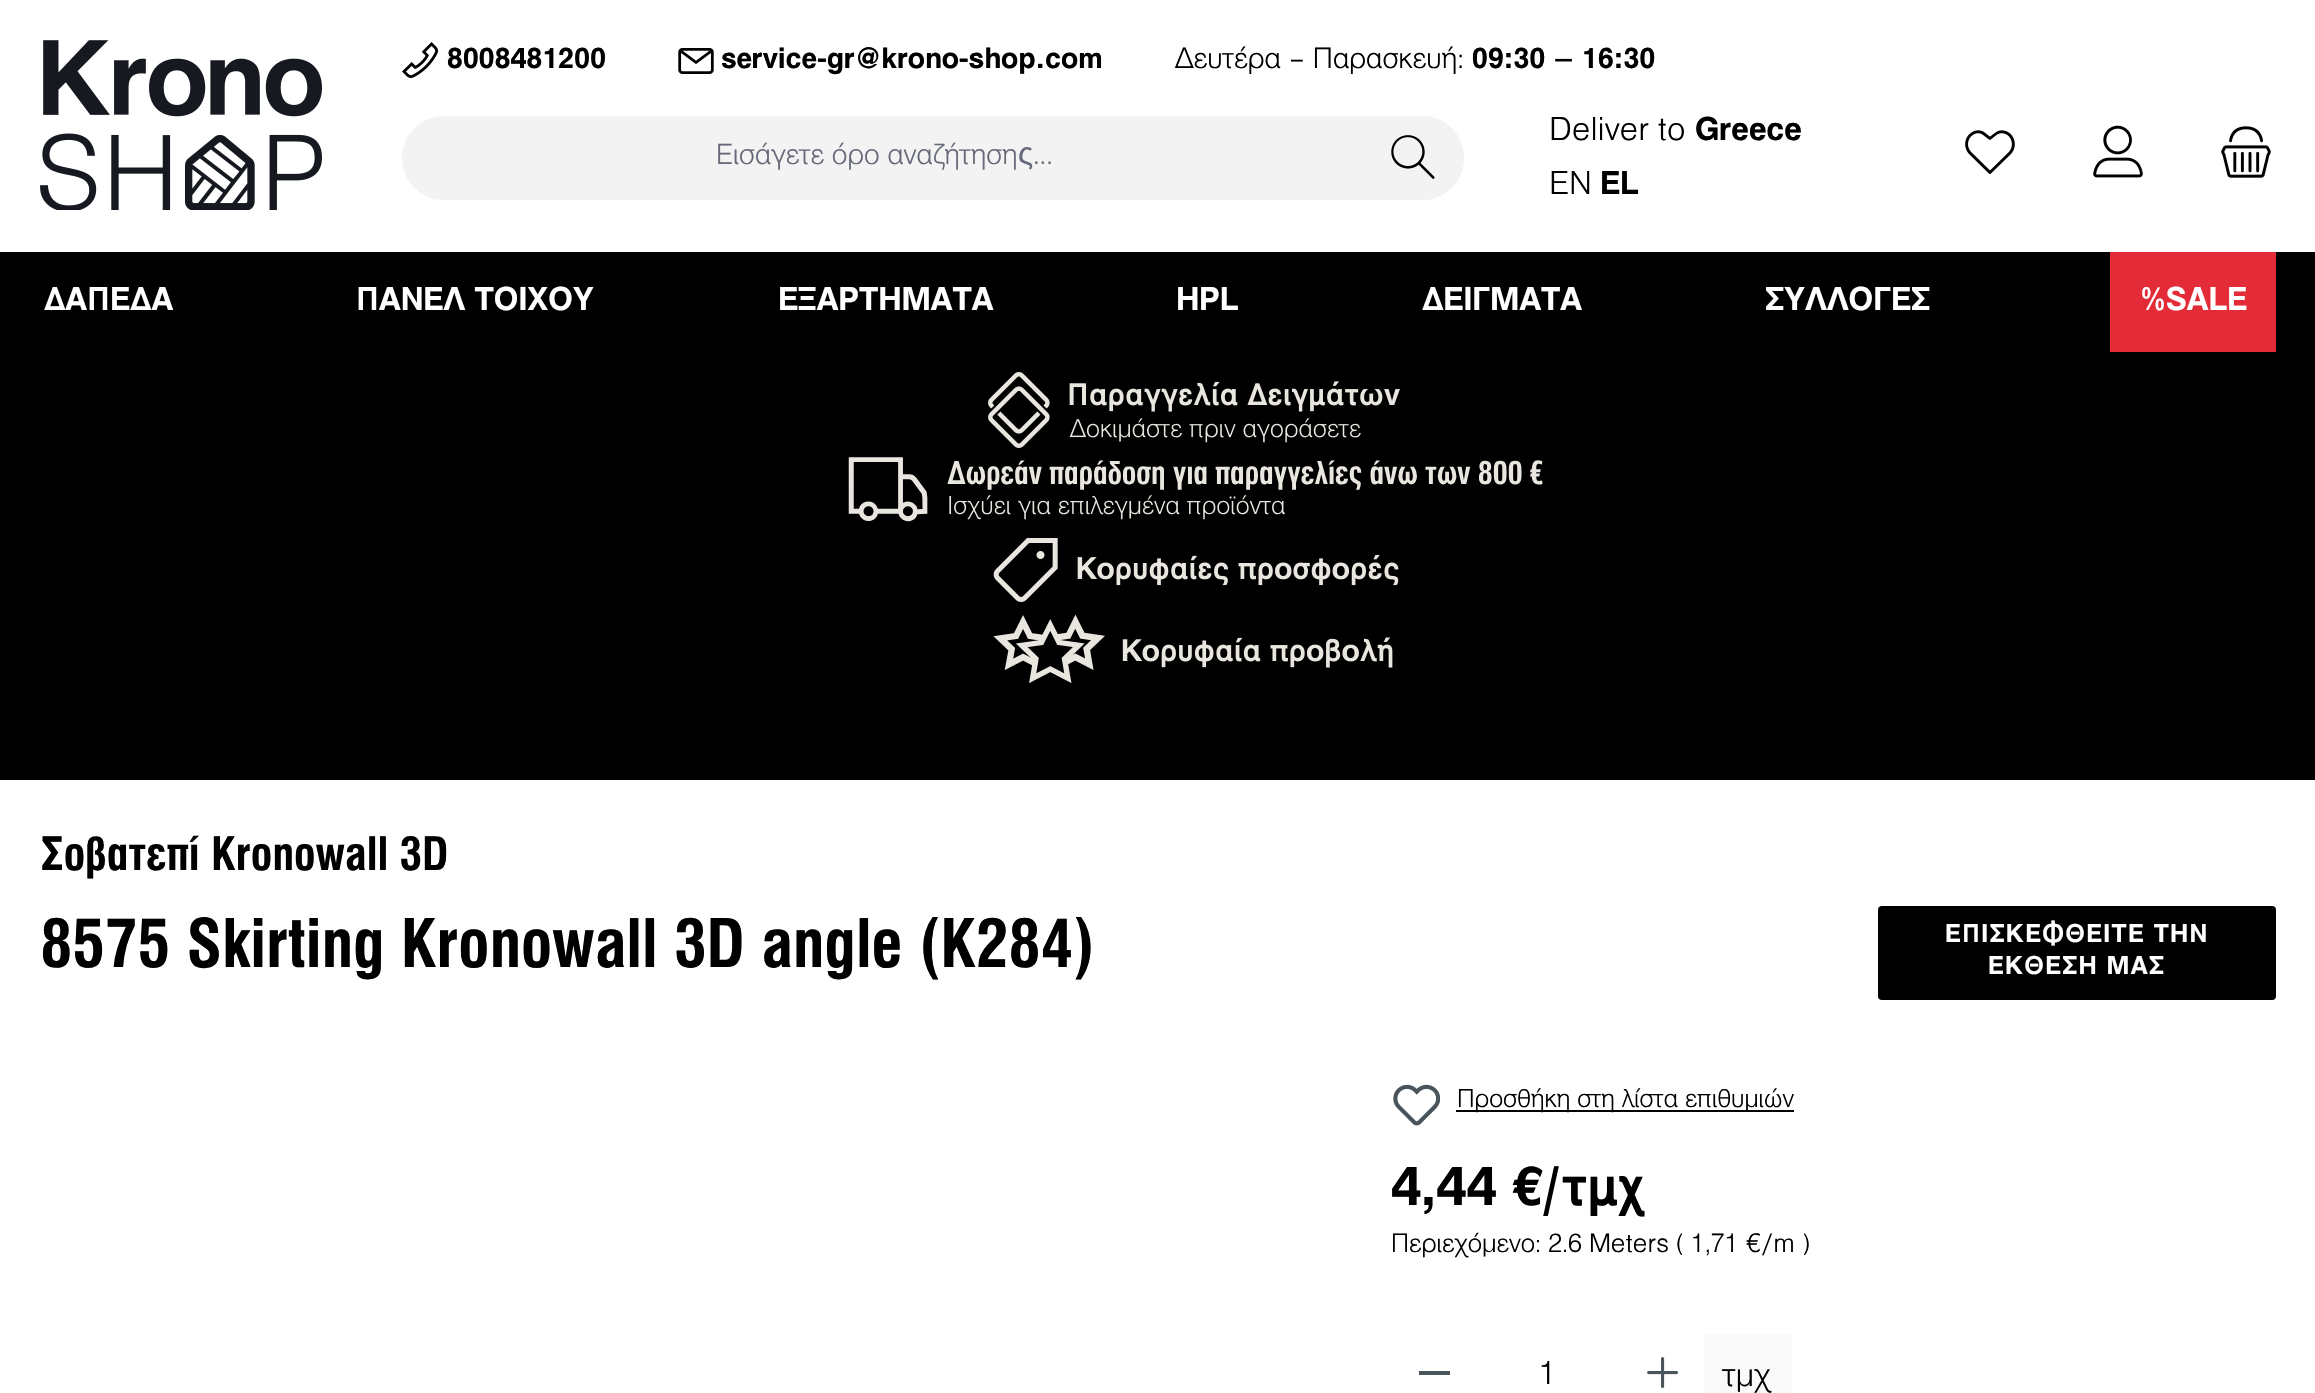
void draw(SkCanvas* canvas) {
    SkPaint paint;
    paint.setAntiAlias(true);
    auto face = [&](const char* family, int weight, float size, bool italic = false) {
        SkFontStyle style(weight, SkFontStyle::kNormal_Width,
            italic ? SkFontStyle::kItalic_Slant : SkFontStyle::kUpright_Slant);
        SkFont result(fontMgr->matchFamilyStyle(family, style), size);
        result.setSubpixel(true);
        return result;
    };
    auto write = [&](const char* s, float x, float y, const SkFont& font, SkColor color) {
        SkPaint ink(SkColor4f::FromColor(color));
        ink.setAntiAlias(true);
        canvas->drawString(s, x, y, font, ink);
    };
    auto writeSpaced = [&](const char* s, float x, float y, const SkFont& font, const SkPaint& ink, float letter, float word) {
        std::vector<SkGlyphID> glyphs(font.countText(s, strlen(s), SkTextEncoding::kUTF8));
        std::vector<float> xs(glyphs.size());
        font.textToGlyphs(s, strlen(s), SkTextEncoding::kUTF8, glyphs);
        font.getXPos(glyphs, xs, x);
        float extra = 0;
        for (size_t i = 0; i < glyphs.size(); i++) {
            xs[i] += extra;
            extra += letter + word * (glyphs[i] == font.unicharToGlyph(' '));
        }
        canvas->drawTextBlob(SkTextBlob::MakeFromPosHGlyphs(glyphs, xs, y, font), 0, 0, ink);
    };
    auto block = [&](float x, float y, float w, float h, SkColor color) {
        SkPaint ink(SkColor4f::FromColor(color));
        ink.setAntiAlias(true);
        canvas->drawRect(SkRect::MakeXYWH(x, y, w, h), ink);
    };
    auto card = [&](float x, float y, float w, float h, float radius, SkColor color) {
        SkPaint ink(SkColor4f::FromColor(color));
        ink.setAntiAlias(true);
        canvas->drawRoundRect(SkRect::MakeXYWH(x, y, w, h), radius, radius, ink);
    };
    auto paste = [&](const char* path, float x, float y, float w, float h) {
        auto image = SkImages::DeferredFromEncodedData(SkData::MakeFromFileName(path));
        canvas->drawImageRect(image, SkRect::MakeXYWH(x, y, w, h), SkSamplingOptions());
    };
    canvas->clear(SK_ColorWHITE);
    paste("pic1.png", 40, 40, 282, 170);
    paste("pic2.png", 402, 42, 36, 36);
    auto kFont1 = face("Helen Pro", 700, 32);
    write("8008481200", 447, 68, kFont1, SK_ColorBLACK);
    paste("pic3.png", 678, 48, 36, 26);
    write("service-gr@krono-shop.com", 721, 68, kFont1, SK_ColorBLACK);
    auto kFont2 = face("Helen Pro", 300, 32);
    write("Δευτέρα – Παρασκευή:", 1175, 68, kFont2, SK_ColorBLACK);
    write("09:30 – 16:30", 1472, 68, kFont1, SK_ColorBLACK);
    paint.setColor(SkColorSetRGB(243, 243, 243));
    canvas->drawPath(SkPathBuilder().moveTo(444, 117).lineTo(1365, 117).lineTo(1365, 199).lineTo(444, 199).cubicTo(421.5f, 199, 403, 180.5f, 403, 158).cubicTo(403, 135.5f, 421.5f, 117, 444, 117).close().detach(), paint);
    paint.setStyle(SkPaint::kStroke_Style);
    paint.setStrokeWidth(2);
    canvas->drawPath(SkPathBuilder().moveTo(444, 117).lineTo(1365, 117).lineTo(1365, 199).lineTo(444, 199).cubicTo(421.5f, 199, 403, 180.5f, 403, 158).cubicTo(403, 135.5f, 421.5f, 117, 444, 117).close().detach(), paint);
    auto kFont3 = face("Helen Pro", 300, 31.5f);
    write("Εισάγετε όρο αναζήτηση", 716, 164, kFont3, SkColorSetRGB(102, 105, 119));
    auto kFont4 = face("Liberation Sans", 400, 31.5f);
    write("ς", 1018, 164, kFont4, SkColorSetRGB(102, 105, 119));
    write("...", 1033, 164, kFont3, SkColorSetRGB(102, 105, 119));
    paint.setStyle(SkPaint::kFill_Style);
    canvas->drawPath(SkPathBuilder().moveTo(1364, 116).lineTo(1422, 116).cubicTo(1445, 116, 1464, 135, 1464, 158).cubicTo(1464, 181, 1445, 200, 1422, 200).lineTo(1364, 200).close().detach(), paint);
    canvas->drawPath(SkPathBuilder(SkPathFillType::kEvenOdd).moveTo(1364, 116).lineTo(1422, 116).cubicTo(1445, 116, 1464, 135, 1464, 158).cubicTo(1464, 181, 1445, 200, 1422, 200).lineTo(1364, 200).close().moveTo(1364, 118).lineTo(1422, 118).cubicTo(1444, 118, 1462, 136, 1462, 158).cubicTo(1462, 180, 1444, 198, 1422, 198).lineTo(1364, 198).close().detach(), paint);
    paste("pic4.png", 1391, 135, 44, 44);
    auto kFont5 = face("Helen Pro", 300, 36);
    write("Deliver to", 1549, 140, kFont5, SK_ColorBLACK);
    auto kFont6 = face("Helen Pro", 700, 36);
    write("Greece", 1695, 140, kFont6, SK_ColorBLACK);
    write("EN", 1549, 194, kFont5, SK_ColorBLACK);
    write("EL", 1600, 194, kFont6, SK_ColorBLACK);
    paste("pic5.png", 1965, 130, 50, 44);
    paste("pic6.png", 2093, 125, 50, 53);
    paste("pic7.png", 2221, 126, 50, 52);
    block(0, 252, 2315, 528, SK_ColorBLACK);
    write("ΔΑΠΕΔΑ", 44, 310, kFont6, SK_ColorWHITE);
    write("ΠΑΝΕΛ ΤΟΙΧΟΥ", 356, 310, kFont6, SK_ColorWHITE);
    write("ΕΞΑΡΤΗΜΑΤΑ", 778, 310, kFont6, SK_ColorWHITE);
    write("HPL", 1176, 310, kFont6, SK_ColorWHITE);
    write("ΔΕΙΓΜΑΤΑ", 1422, 310, kFont6, SK_ColorWHITE);
    write("ΣΥΛΛΟΓΕΣ", 1765, 310, kFont6, SK_ColorWHITE);
    block(2110, 252, 166, 100, SkColorSetRGB(227, 44, 55));
    write("%SALE", 2139, 310, kFont6, SK_ColorWHITE);
    paste("pic8.png", 988, 372, 412, 76);
    paste("pic9.png", 848, 457, 695, 65);
    paste("pic10.png", 993, 538, 406, 64);
    paste("pic11.png", 993, 614, 400, 69);
    auto kFont7 = face("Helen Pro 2", 700, 52.75f);
    write("Σοβατεπί Kronowall 3D", 40, 870, kFont7, SK_ColorBLACK);
    auto kFont8 = face("Helen Pro 2", 700, 76.4f);
    write("8575 Skirting Kronowall 3D angle (K284)", 40, 967, kFont8, SK_ColorBLACK);
    card(1878, 906, 398, 94, 4, SK_ColorBLACK);
    auto kFont9 = face("Helen Pro", 700, 28);
    paint.setColor(SK_ColorWHITE);
    writeSpaced("ΕΠΙΣΚΕΦΘΕΙΤΕ ΤΗΝ", 1945, 942, kFont9, paint, 1.4f, 0);
    writeSpaced("ΕΚΘΕΣΗ ΜΑΣ", 1988, 974, kFont9, paint, 1.4f, 0);
    paste("pic12.png", 1393, 1084, 47, 42);
    block(1456, 1110, 338, 2, SK_ColorBLACK);
    auto kFont10 = face("Helen Pro", 300, 28);
    write("Προσθήκη στη λίστα επιθυμιών", 1457, 1107, kFont10, SK_ColorBLACK);
    auto kFont11 = face("Helen Pro", 700, 60.5f);
    write("4,44 €/τμχ", 1391, 1205, kFont11, SK_ColorBLACK);
    auto kFont12 = face("Helen Pro", 300, 28.75f);
    write("Περιεχόμενο: 2.6 Meters ( 1,71 €/m )", 1391, 1252, kFont12, SK_ColorBLACK);
    block(1419, 1371, 31, 4, SkColorSetRGB(74, 84, 91));
    write("1", 1539, 1384, kFont5, SK_ColorBLACK);
    paste("pic13.png", 1647, 1357, 31, 31);
    block(1704, 1334, 88, 59, SkColorSetRGB(249, 249, 249));
    write("τμχ", 1723, 1386, kFont5, SK_ColorBLACK);
}
